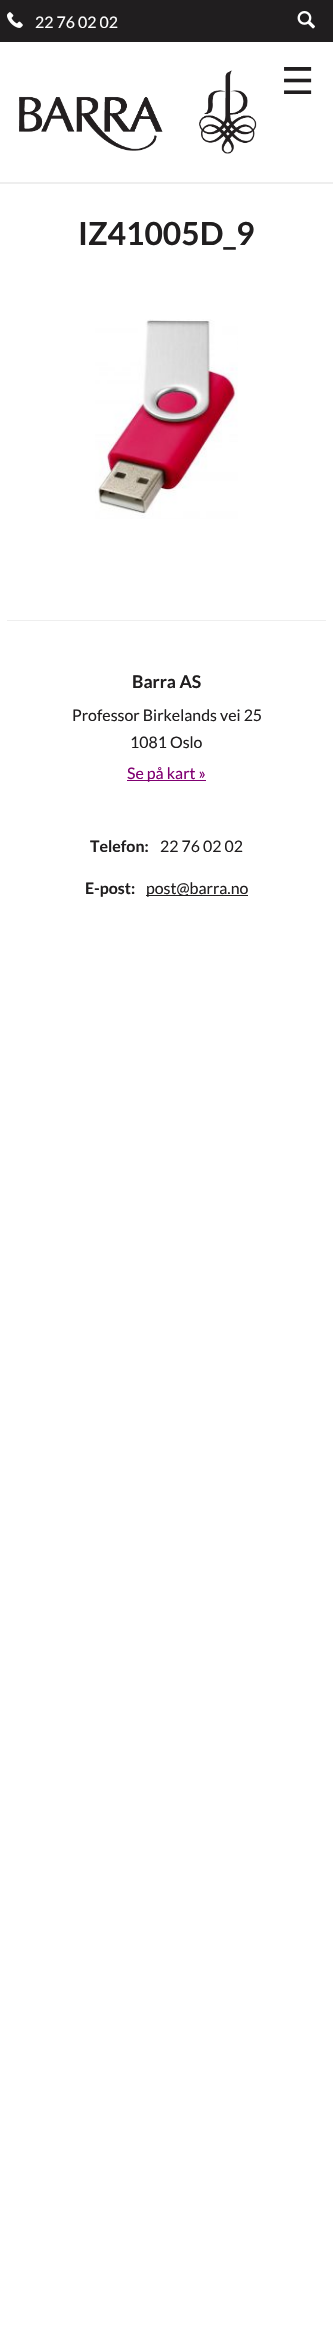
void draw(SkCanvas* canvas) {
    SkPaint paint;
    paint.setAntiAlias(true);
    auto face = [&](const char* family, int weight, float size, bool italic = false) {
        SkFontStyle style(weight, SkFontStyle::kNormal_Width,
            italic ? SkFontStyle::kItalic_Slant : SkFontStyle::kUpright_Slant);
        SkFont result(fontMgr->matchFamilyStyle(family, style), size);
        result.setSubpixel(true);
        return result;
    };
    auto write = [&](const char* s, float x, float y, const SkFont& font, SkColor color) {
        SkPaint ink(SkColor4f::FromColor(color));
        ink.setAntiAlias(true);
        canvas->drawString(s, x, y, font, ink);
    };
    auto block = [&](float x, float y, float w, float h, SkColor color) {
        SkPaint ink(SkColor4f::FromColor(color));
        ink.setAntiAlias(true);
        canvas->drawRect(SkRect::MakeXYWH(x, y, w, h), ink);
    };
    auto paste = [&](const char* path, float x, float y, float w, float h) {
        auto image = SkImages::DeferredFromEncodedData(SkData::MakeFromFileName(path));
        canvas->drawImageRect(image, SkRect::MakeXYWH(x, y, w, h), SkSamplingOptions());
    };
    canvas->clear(SK_ColorWHITE);
    block(0, 0, 333, 42, SkColorSetRGB(32, 30, 31));
    paste("pic1.png", 7, 12, 16, 16);
    auto kFont1 = face("Lato", 400, 15.9f);
    write("22 76 02 02", 35, 28, kFont1, SK_ColorWHITE);
    paste("pic2.png", 297, 11, 18, 18);
    paste("pic3.png", 19, 70, 238, 84);
    block(0, 182, 333, 2, SkColorSetRGB(238, 238, 238));
    auto kFont2 = face("DejaVu Sans", 400, 37);
    write("☰", 281, 94, kFont2, SkColorSetRGB(32, 30, 31));
    auto kFont3 = face("Lato", 700, 31.75f);
    write("IZ41005D_9", 78, 245, kFont3, SkColorSetRGB(32, 30, 31));
    paste("pic4.png", 95, 319, 143, 200);
    block(7, 620, 319, 1, SkColorSetRGB(238, 238, 238));
    auto kFont4 = face("Lato", 700, 17.5f);
    write("Barra AS", 132, 688, kFont4, SkColorSetRGB(32, 30, 31));
    write("Professor Birkelands vei 25", 72, 721, kFont1, SkColorSetRGB(32, 30, 31));
    write("1081 Oslo", 130, 748, kFont1, SkColorSetRGB(32, 30, 31));
    block(127, 780, 79, 1, SkColorSetRGB(128, 0, 113));
    write("Se på kart »", 127, 779, kFont1, SkColorSetRGB(128, 0, 113));
    auto kFont5 = face("Lato", 700, 15.9f);
    write("Telefon:", 90, 852, kFont5, SkColorSetRGB(32, 30, 31));
    write("22 76 02 02", 160, 852, kFont1, SkColorSetRGB(32, 30, 31));
    write("E-post:", 85, 894, kFont5, SkColorSetRGB(32, 30, 31));
    block(146, 895, 102, 1, SkColorSetRGB(32, 30, 31));
    write("post@barra.no", 146, 894, kFont1, SkColorSetRGB(32, 30, 31));
}
